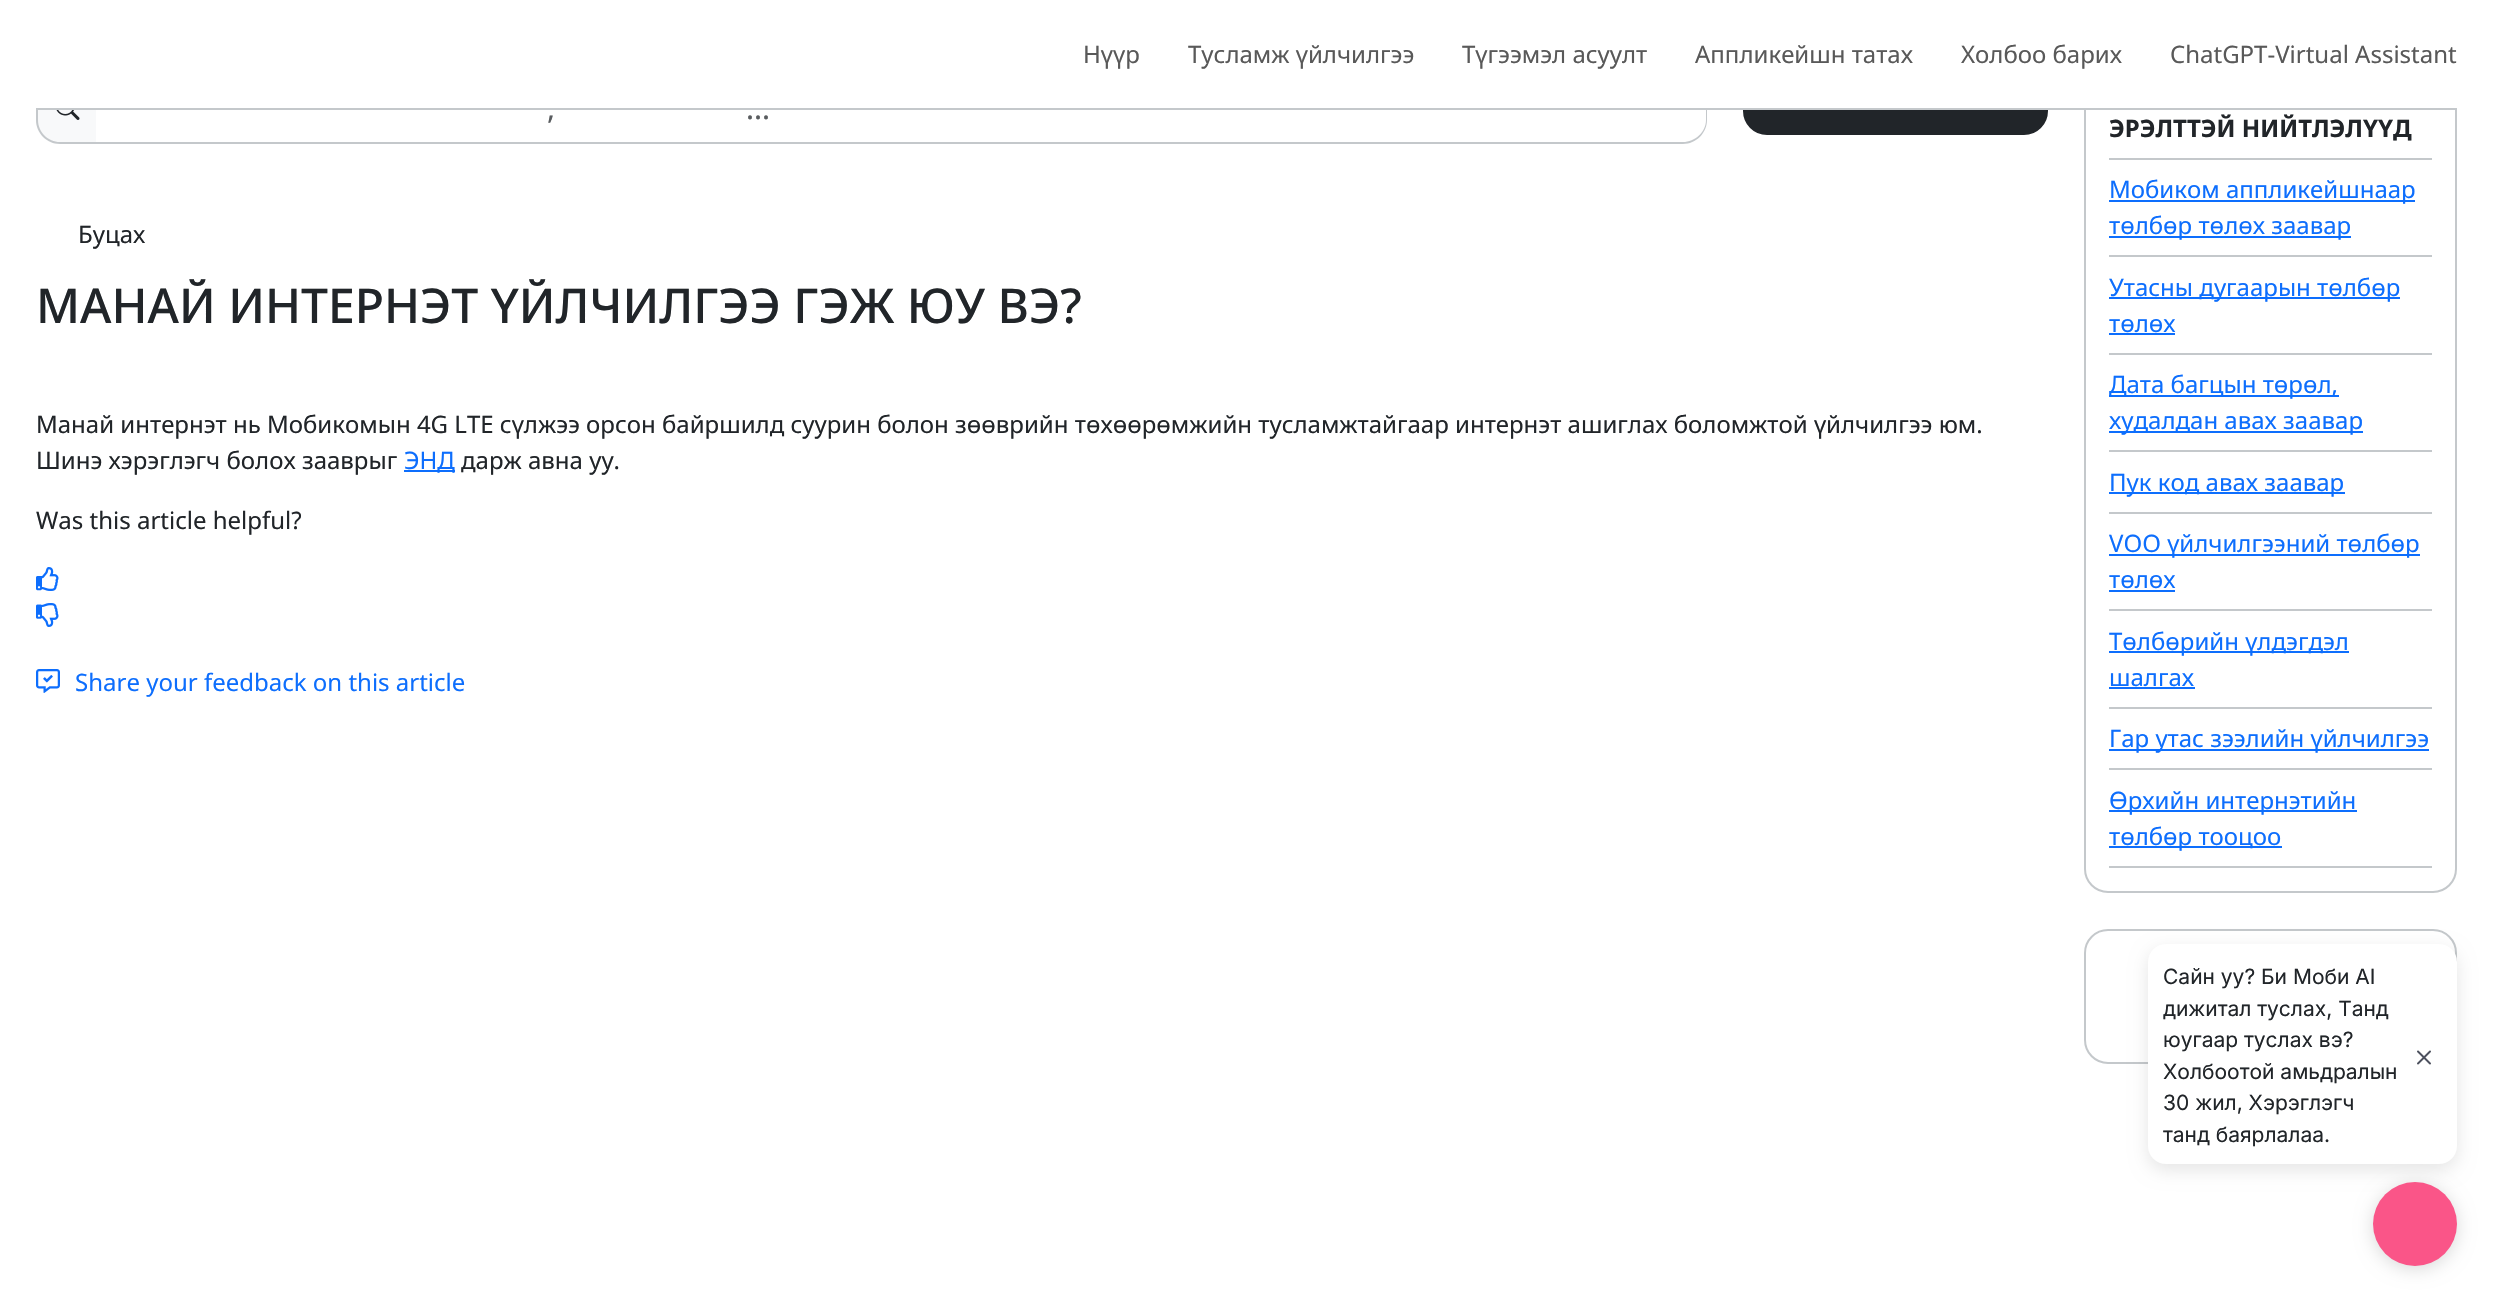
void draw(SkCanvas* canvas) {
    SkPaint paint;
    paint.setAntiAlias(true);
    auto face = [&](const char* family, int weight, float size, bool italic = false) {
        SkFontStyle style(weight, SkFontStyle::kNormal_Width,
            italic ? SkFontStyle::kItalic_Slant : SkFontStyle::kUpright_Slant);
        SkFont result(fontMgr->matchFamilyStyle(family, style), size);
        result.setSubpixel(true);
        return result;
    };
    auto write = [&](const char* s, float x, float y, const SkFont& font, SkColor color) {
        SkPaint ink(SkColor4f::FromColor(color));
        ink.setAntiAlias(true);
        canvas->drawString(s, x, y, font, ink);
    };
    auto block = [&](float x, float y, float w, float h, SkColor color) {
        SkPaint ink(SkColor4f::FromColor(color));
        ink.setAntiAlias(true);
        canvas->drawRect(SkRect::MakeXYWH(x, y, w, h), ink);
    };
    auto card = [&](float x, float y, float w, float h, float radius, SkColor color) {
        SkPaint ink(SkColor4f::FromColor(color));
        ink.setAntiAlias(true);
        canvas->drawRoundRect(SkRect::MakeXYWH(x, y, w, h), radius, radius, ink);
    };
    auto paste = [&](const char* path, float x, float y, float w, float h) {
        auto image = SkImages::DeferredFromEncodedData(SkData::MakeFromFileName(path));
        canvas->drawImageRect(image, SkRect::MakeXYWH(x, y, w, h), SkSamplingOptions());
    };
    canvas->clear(SK_ColorWHITE);
    paint.setColor(SkColorSetRGB(248, 249, 250));
    canvas->drawPath(SkPathBuilder().moveTo(60, 72).lineTo(98, 72).lineTo(98, 144).lineTo(60, 144).cubicTo(46.5f, 144, 36, 133.5f, 36, 120).lineTo(36, 96).cubicTo(36, 82.5f, 46.5f, 72, 60, 72).close().detach(), paint);
    paint.setColor(SkColorSetRGB(196, 200, 203));
    canvas->drawPath(SkPathBuilder(SkPathFillType::kEvenOdd).moveTo(60, 72).lineTo(98, 72).lineTo(98, 144).lineTo(60, 144).cubicTo(47, 144, 36, 133, 36, 120).lineTo(36, 96).cubicTo(36, 83, 47, 72, 60, 72).close().moveTo(60, 74).lineTo(98, 74).lineTo(98, 142).lineTo(60, 142).cubicTo(48, 142, 38, 132, 38, 120).lineTo(38, 96).cubicTo(38, 84, 48, 74, 60, 74).close().detach(), paint);
    paint.setColor(SK_ColorWHITE);
    canvas->drawPath(SkPathBuilder().moveTo(96, 74).lineTo(1683, 74).cubicTo(1695.5f, 74, 1706, 84.5f, 1706, 97).lineTo(1706, 120).cubicTo(1706, 132.5f, 1695.5f, 143, 1683, 143).lineTo(96, 143).close().detach(), paint);
    paint.setColor(SkColorSetRGB(196, 200, 203));
    canvas->drawPath(SkPathBuilder(SkPathFillType::kEvenOdd).moveTo(96, 72).lineTo(1683, 72).cubicTo(1696, 72, 1707, 83, 1707, 96).lineTo(1707, 120).cubicTo(1707, 133, 1696, 144, 1683, 144).lineTo(96, 144).close().moveTo(96, 74).lineTo(1683, 74).cubicTo(1695, 74, 1706, 84, 1706, 96).lineTo(1706, 120).cubicTo(1706, 132, 1695, 142, 1683, 142).lineTo(96, 142).close().detach(), paint);
    paint.setColor(SkColorSetRGB(33, 37, 41));
    canvas->drawRoundRect(SkRect::MakeXYWH(1744, 73, 303, 61), 23, 23, paint);
    paint.setStyle(SkPaint::kStroke_Style);
    paint.setStrokeWidth(2);
    canvas->drawRoundRect(SkRect::MakeXYWH(1744, 73, 303, 61), 23, 23, paint);
    paint.setColor(SkColorSetRGB(196, 200, 203));
    canvas->drawRoundRect(SkRect::MakeXYWH(2085, 73, 371, 819), 23, 23, paint);
    block(36, 72, 2421, 36, SK_ColorWHITE);
    block(36, 108, 2421, 2, SkColorSetRGB(196, 200, 203));
    auto kFont1 = face("Noto Sans", 400, 24);
    write("Нүүр", 1083, 63, kFont1, SkColorSetRGB(89, 89, 89));
    write("Тусламж үйлчилгээ", 1188, 63, kFont1, SkColorSetRGB(89, 89, 89));
    write("Түгээмэл асуулт", 1462, 63, kFont1, SkColorSetRGB(89, 89, 89));
    write("Аппликейшн татах", 1695, 63, kFont1, SkColorSetRGB(89, 89, 89));
    write("Холбоо барих", 1961, 63, kFont1, SkColorSetRGB(89, 89, 89));
    write("ChatGPT-Virtual Assistant", 2170, 63, kFont1, SkColorSetRGB(89, 89, 89));
    paste("pic1.png", 56, 110, 24, 10);
    auto kFont2 = face("Noto Sans", 400, 30);
    write(",", 547, 119, kFont2, SkColorSetRGB(89, 92, 95));
    write("...", 746, 119, kFont2, SkColorSetRGB(89, 92, 95));
    write("Буцах", 78, 243, kFont1, SkColorSetRGB(33, 37, 41));
    auto kFont3 = face("Noto Sans", 500, 48);
    write("МАНАЙ ИНТЕРНЭТ ҮЙЛЧИЛГЭЭ ГЭЖ ЮУ ВЭ?", 36, 323, kFont3, SkColorSetRGB(33, 37, 41));
    write("Манай интернэт нь Мобикомын 4G LTE сүлжээ орсон байршилд суурин болон зөөврийн төхөөрөмжийн тусламжтайгаар интернэт ашиглах боломжтой үйлчилгээ юм.", 36, 433, kFont1, SkColorSetRGB(33, 37, 41));
    write("Шинэ хэрэглэгч болох зааврыг", 36, 469, kFont1, SkColorSetRGB(33, 37, 41));
    block(404, 470, 51, 2, SkColorSetRGB(13, 110, 253));
    write("ЭНД", 404, 469, kFont1, SkColorSetRGB(13, 110, 253));
    write("дарж авна уу.", 461, 469, kFont1, SkColorSetRGB(33, 37, 41));
    write("Was this article helpful?", 36, 529, kFont1, SkColorSetRGB(33, 37, 41));
    paste("pic2.png", 36, 567, 23, 24);
    paste("pic3.png", 36, 603, 23, 24);
    paste("pic4.png", 36, 669, 24, 24);
    write("Share your feedback on this article", 75, 691, kFont1, SkColorSetRGB(13, 110, 253));
    block(2109, 158, 323, 2, SkColorSetRGB(196, 200, 203));
    auto kFont4 = face("Noto Sans", 700, 24);
    write("ЭРЭЛТТЭЙ НИЙТЛЭЛҮҮД", 2109, 137, kFont4, SkColorSetRGB(33, 37, 41));
    block(2109, 255, 323, 2, SkColorSetRGB(196, 200, 203));
    block(2109, 200, 306, 2, SkColorSetRGB(13, 110, 253));
    write("Мобиком аппликейшнаар", 2109, 198, kFont1, SkColorSetRGB(13, 110, 253));
    block(2109, 236, 242, 2, SkColorSetRGB(13, 110, 253));
    write("төлбөр төлөх заавар", 2109, 234, kFont1, SkColorSetRGB(13, 110, 253));
    block(2109, 353, 323, 2, SkColorSetRGB(196, 200, 203));
    block(2109, 297, 291, 2, SkColorSetRGB(13, 110, 253));
    write("Утасны дугаарын төлбөр", 2109, 296, kFont1, SkColorSetRGB(13, 110, 253));
    write("төлөх", 2109, 332, kFont1, SkColorSetRGB(13, 110, 253));
    block(2109, 333, 66, 2, SkColorSetRGB(13, 110, 253));
    block(2109, 450, 323, 2, SkColorSetRGB(196, 200, 203));
    block(2109, 395, 230, 2, SkColorSetRGB(13, 110, 253));
    write("Дата багцын төрөл,", 2109, 393, kFont1, SkColorSetRGB(13, 110, 253));
    block(2109, 431, 254, 2, SkColorSetRGB(13, 110, 253));
    write("худалдан авах заавар", 2109, 429, kFont1, SkColorSetRGB(13, 110, 253));
    block(2109, 512, 323, 2, SkColorSetRGB(196, 200, 203));
    block(2109, 492, 236, 2, SkColorSetRGB(13, 110, 253));
    write("Пук код авах заавар", 2109, 491, kFont1, SkColorSetRGB(13, 110, 253));
    block(2109, 609, 323, 2, SkColorSetRGB(196, 200, 203));
    block(2109, 554, 311, 2, SkColorSetRGB(13, 110, 253));
    write("VOO үйлчилгээний төлбөр", 2109, 552, kFont1, SkColorSetRGB(13, 110, 253));
    write("төлөх", 2109, 588, kFont1, SkColorSetRGB(13, 110, 253));
    block(2109, 590, 66, 2, SkColorSetRGB(13, 110, 253));
    block(2109, 707, 323, 2, SkColorSetRGB(196, 200, 203));
    block(2109, 651, 240, 2, SkColorSetRGB(13, 110, 253));
    write("Төлбөрийн үлдэгдэл", 2109, 650, kFont1, SkColorSetRGB(13, 110, 253));
    write("шалгах", 2109, 686, kFont1, SkColorSetRGB(13, 110, 253));
    block(2109, 687, 86, 2, SkColorSetRGB(13, 110, 253));
    block(2109, 768, 323, 2, SkColorSetRGB(196, 200, 203));
    block(2109, 749, 320, 2, SkColorSetRGB(13, 110, 253));
    write("Гар утас зээлийн үйлчилгээ", 2109, 747, kFont1, SkColorSetRGB(13, 110, 253));
    block(2109, 866, 323, 2, SkColorSetRGB(196, 200, 203));
    block(2109, 810, 248, 2, SkColorSetRGB(13, 110, 253));
    write("Өрхийн интернэтийн", 2109, 809, kFont1, SkColorSetRGB(13, 110, 253));
    block(2109, 846, 173, 2, SkColorSetRGB(13, 110, 253));
    write("төлбөр тооцоо", 2109, 845, kFont1, SkColorSetRGB(13, 110, 253));
    canvas->drawRoundRect(SkRect::MakeXYWH(2085, 930, 371, 133), 23, 23, paint);
    paint.setStyle(SkPaint::kFill_Style);
    paint.setColor(SkColorSetARGB(26, 0, 0, 0));
    paint.setMaskFilter(SkMaskFilter::MakeBlur(kNormal_SkBlurStyle, 9));
    canvas->drawRoundRect(SkRect::MakeXYWH(2148, 950, 309, 220), 18, 18, paint);
    paint.setMaskFilter(nullptr);
    card(2148, 944, 309, 220, 18, SK_ColorWHITE);
    auto kFont5 = face("Inter", 400, 21);
    write("Сайн уу? Би Моби AI", 2163, 984, kFont5, SkColorSetRGB(33, 37, 41));
    write("дижитал туслах, Танд", 2163, 1016, kFont5, SkColorSetRGB(33, 37, 41));
    write("юугаар туслах вэ?", 2163, 1047, kFont5, SkColorSetRGB(33, 37, 41));
    write("Холбоотой амьдралын", 2163, 1079, kFont5, SkColorSetRGB(33, 37, 41));
    write("30 жил, Хэрэглэгч", 2163, 1110, kFont5, SkColorSetRGB(33, 37, 41));
    write("танд баярлалаа.", 2163, 1142, kFont5, SkColorSetRGB(33, 37, 41));
    paste("pic5.png", 2417, 1050, 14, 15);
    paint.setColor(SkColorSetARGB(38, 0, 0, 0));
    paint.setMaskFilter(SkMaskFilter::MakeBlur(kNormal_SkBlurStyle, 9));
    canvas->drawRoundRect(SkRect::MakeXYWH(2373, 1185, 84, 84), 42, 42, paint);
    paint.setMaskFilter(nullptr);
    paint.setColor(SkColorSetRGB(250, 85, 136));
    canvas->drawCircle(2415, 1224, 42, paint);
}
